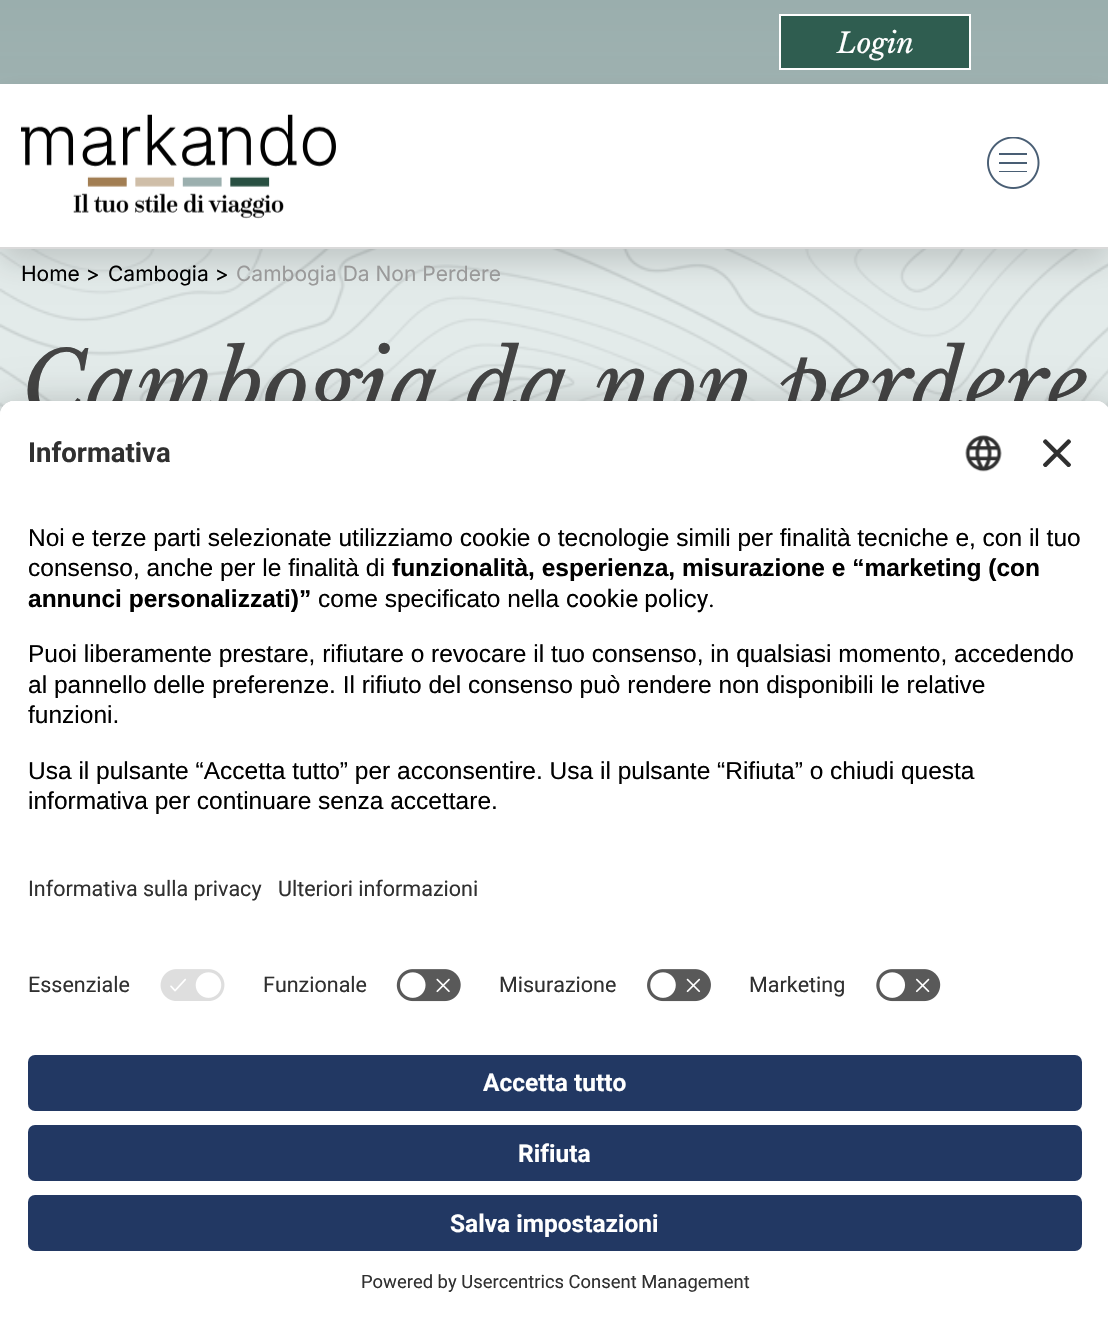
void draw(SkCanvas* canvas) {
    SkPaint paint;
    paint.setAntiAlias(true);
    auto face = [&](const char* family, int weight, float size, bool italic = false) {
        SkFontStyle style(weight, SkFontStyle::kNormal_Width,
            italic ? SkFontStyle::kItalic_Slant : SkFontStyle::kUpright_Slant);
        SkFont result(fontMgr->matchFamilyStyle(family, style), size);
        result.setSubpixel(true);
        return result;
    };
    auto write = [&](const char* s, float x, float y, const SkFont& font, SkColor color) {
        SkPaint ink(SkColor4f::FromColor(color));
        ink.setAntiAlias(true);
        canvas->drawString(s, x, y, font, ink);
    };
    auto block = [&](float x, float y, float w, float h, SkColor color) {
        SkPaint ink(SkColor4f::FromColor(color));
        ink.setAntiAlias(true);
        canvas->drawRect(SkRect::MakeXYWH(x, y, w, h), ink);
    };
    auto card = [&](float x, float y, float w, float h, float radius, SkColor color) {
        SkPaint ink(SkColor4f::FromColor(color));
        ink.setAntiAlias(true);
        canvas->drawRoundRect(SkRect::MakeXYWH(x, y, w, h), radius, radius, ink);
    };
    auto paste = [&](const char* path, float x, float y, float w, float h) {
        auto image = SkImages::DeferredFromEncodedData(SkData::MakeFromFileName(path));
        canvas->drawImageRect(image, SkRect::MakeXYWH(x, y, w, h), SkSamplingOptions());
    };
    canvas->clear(SK_ColorWHITE);
    {
        const SkColor colors[] = {SkColorSetRGB(154, 174, 173), SkColorSetRGB(159, 178, 177)};
        const float stops[] = {0, 1};
        const SkPoint ends[] = {{555, 0}, {555, 84}};
        paint.setShader(SkGradientShader::MakeLinear(ends, colors, stops, 2, SkTileMode::kClamp));
        paint.setAlpha(255);
    }
    canvas->drawRect(SkRect::MakeXYWH(0, 0, 1108, 84), paint);
    paint.setShader(nullptr);
    paint.setColor(SkColorSetRGB(47, 93, 80));
    canvas->drawRect(SkRect::MakeXYWH(780, 15, 190, 54), paint);
    paint.setStyle(SkPaint::kStroke_Style);
    paint.setStrokeWidth(2);
    paint.setColor(SK_ColorWHITE);
    canvas->drawRect(SkRect::MakeXYWH(780, 15, 190, 54), paint);
    auto kFont1 = face("Libre Baskerville", 400, 28, true);
    write("Login", 837, 53, kFont1, SK_ColorWHITE);
    paste("pic3.png", 0, 249, 1108, 166);
    paint.setStyle(SkPaint::kFill_Style);
    paint.setColor(SkColorSetARGB(38, 0, 0, 0));
    paint.setMaskFilter(SkMaskFilter::MakeBlur(kNormal_SkBlurStyle, 14));
    canvas->drawRect(SkRect::MakeXYWH(0, 98, 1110, 165), paint);
    paint.setMaskFilter(nullptr);
    block(0, 84, 1108, 163, SK_ColorWHITE);
    block(0, 247, 1108, 2, SkColorSetRGB(217, 217, 217));
    paste("pic1.png", 21, 114, 315, 105);
    paste("pic2.png", 987, 137, 53, 52);
    auto kFont2 = face("Inter", 400, 21);
    write("Home >", 21, 281, kFont2, SK_ColorBLACK);
    write("Cambogia >", 108, 281, kFont2, SK_ColorBLACK);
    write("Cambogia Da Non Perdere", 236, 281, kFont2, SkColorSetRGB(154, 154, 154));
    auto kFont3 = face("Libre Baskerville", 400, 89.6f, true);
    write("Cambogia da non perdere", 21, 417, kFont3, SkColorSetRGB(68, 68, 68));
    paint.setColor(SkColorSetARGB(77, 0, 0, 0));
    paint.setMaskFilter(SkMaskFilter::MakeBlur(kNormal_SkBlurStyle, 24.5f));
    canvas->drawRoundRect(SkRect::MakeXYWH(0, 436, 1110, 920), 14, 14, paint);
    paint.setMaskFilter(nullptr);
    paint.setColor(SkColorSetARGB(56, 0, 0, 0));
    paint.setMaskFilter(SkMaskFilter::MakeBlur(kNormal_SkBlurStyle, 23));
    canvas->drawRoundRect(SkRect::MakeXYWH(0, 410, 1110, 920), 14, 14, paint);
    paint.setMaskFilter(nullptr);
    paint.setColor(SK_ColorWHITE);
    canvas->drawPath(SkPathBuilder().moveTo(14, 401).lineTo(1096, 401).cubicTo(1103.5f, 401, 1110, 407.5f, 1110, 415).lineTo(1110, 1321).lineTo(0, 1321).lineTo(0, 415).cubicTo(0, 407.5f, 6.5f, 401, 14, 401).close().detach(), paint);
    canvas->drawPath(SkPathBuilder().moveTo(14, 401).lineTo(1096, 401).cubicTo(1103.5f, 401, 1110, 407.5f, 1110, 415).lineTo(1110, 1034).lineTo(0, 1034).lineTo(0, 415).cubicTo(0, 407.5f, 6.5f, 401, 14, 401).close().detach(), paint);
    canvas->drawPath(SkPathBuilder().moveTo(14, 401).lineTo(1096, 401).cubicTo(1103.5f, 401, 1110, 407.5f, 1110, 415).lineTo(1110, 957).lineTo(0, 957).lineTo(0, 415).cubicTo(0, 407.5f, 6.5f, 401, 14, 401).close().detach(), paint);
    auto kFont4 = face("Roboto", 700, 27.5f);
    write("Informativa", 28, 462, kFont4, SkColorSetRGB(48, 48, 48));
    paste("pic4.png", 965, 435, 37, 37);
    paste("pic5.png", 1043, 439, 28, 28);
    auto kFont5 = face("Liberation Sans", 400, 24.5f);
    write("Noi e terze parti selezionate utilizziamo cookie o tecnologie simili per finalità tecniche e, con il tuo", 28, 546, kFont5, SK_ColorBLACK);
    write("consenso, anche per le finalità di", 28, 576, kFont5, SK_ColorBLACK);
    auto kFont6 = face("Liberation Sans", 700, 24.5f);
    write("funzionalità, esperienza, misurazione e “marketing (con", 392, 576, kFont6, SK_ColorBLACK);
    write("annunci personalizzati)”", 28, 607, kFont6, SK_ColorBLACK);
    write("come specificato nella", 318, 607, kFont5, SK_ColorBLACK);
    auto kFont7 = face("Roboto", 400, 24.5f);
    write("cookie policy.", 566, 607, kFont7, SK_ColorBLACK);
    write("Puoi liberamente prestare, rifiutare o revocare il tuo consenso, in qualsiasi momento, accedendo", 28, 662, kFont5, SK_ColorBLACK);
    write("al pannello delle preferenze. Il rifiuto del consenso può rendere non disponibili le relative", 28, 693, kFont5, SK_ColorBLACK);
    write("funzioni.", 28, 723, kFont5, SK_ColorBLACK);
    write("Usa il pulsante “Accetta tutto” per acconsentire. Usa il pulsante “Rifiuta” o chiudi questa", 28, 779, kFont5, SK_ColorBLACK);
    write("informativa per continuare senza accettare.", 28, 809, kFont5, SK_ColorBLACK);
    auto kFont8 = face("Roboto", 400, 21.5f);
    write("Informativa sulla privacy", 28, 896, kFont8, SkColorSetRGB(48, 48, 48));
    write("Ulteriori informazioni", 278, 896, kFont8, SkColorSetRGB(48, 48, 48));
    write("Essenziale", 28, 992, kFont8, SkColorSetRGB(48, 48, 48));
    paste("pic6.png", 160, 969, 65, 32);
    write("Funzionale", 263, 992, kFont8, SkColorSetRGB(48, 48, 48));
    paste("pic7.png", 396, 969, 65, 33);
    write("Misurazione", 499, 992, kFont8, SkColorSetRGB(48, 48, 48));
    paste("pic8.png", 647, 969, 64, 33);
    write("Marketing", 749, 992, kFont8, SkColorSetRGB(48, 48, 48));
    paste("pic9.png", 876, 969, 65, 33);
    card(28, 1055, 1054, 56, 7, SkColorSetRGB(34, 56, 99));
    auto kFont9 = face("Roboto", 700, 24.5f);
    write("Accetta tutto", 483, 1091, kFont9, SK_ColorWHITE);
    card(28, 1125, 1054, 56, 7, SkColorSetRGB(34, 56, 99));
    write("Rifiuta", 518, 1162, kFont9, SK_ColorWHITE);
    card(28, 1195, 1054, 56, 7, SkColorSetRGB(34, 56, 99));
    write("Salva impostazioni", 450, 1232, kFont9, SK_ColorWHITE);
    auto kFont10 = face("Roboto", 400, 18.4f);
    write("Powered by Usercentrics Consent Management", 361, 1288, kFont10, SkColorSetRGB(48, 48, 48));
}
